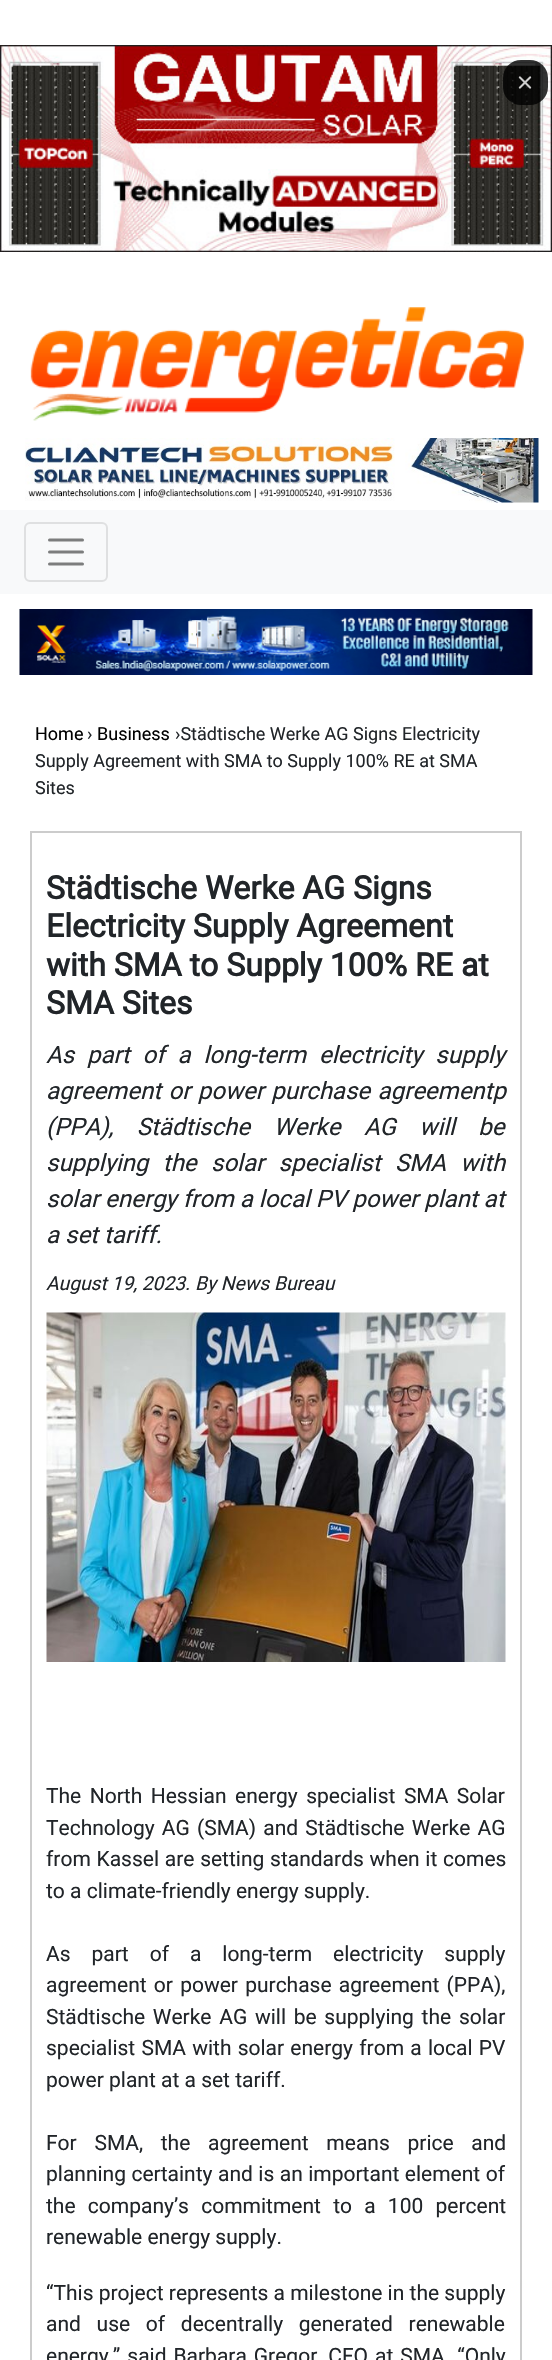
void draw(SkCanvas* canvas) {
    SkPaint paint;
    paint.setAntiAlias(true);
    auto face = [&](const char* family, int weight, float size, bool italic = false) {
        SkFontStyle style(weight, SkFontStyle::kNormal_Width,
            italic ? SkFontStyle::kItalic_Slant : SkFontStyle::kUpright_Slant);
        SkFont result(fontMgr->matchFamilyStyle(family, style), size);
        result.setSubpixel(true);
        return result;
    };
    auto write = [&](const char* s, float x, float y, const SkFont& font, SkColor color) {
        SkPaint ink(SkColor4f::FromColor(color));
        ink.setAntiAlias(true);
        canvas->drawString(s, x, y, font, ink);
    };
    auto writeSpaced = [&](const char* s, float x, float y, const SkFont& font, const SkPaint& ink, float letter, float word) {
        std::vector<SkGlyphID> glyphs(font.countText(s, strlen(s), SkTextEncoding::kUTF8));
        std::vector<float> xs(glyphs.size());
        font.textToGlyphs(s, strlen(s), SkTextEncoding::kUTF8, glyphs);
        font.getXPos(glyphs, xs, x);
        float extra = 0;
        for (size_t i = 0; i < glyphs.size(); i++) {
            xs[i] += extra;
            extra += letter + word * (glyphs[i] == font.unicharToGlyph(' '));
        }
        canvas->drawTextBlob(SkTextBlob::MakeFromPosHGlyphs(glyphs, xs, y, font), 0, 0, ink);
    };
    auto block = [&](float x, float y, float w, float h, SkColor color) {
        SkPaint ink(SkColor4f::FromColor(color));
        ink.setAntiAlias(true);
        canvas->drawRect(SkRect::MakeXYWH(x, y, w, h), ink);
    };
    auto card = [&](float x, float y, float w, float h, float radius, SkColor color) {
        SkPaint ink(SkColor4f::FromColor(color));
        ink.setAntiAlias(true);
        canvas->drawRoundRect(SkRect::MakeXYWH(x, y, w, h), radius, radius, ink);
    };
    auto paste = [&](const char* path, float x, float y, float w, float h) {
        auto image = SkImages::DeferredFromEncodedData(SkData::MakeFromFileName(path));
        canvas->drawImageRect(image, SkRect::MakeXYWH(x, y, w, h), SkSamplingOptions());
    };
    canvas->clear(SK_ColorWHITE);
    paste("pic1.png", 0, 45, 552, 207);
    card(503, 60, 45, 45, 18, SkColorSetARGB(204, 0, 0, 0));
    paste("pic2.png", 518, 76, 14, 13);
    paste("pic3.png", 30, 307, 494, 114);
    paste("pic4.png", 25, 438, 514, 65);
    block(0, 510, 552, 84, SkColorSetRGB(248, 249, 250));
    paint.setStyle(SkPaint::kStroke_Style);
    paint.setStrokeWidth(2);
    paint.setColor(SkColorSetRGB(223, 224, 225));
    canvas->drawRoundRect(SkRect::MakeXYWH(25, 523, 82, 58), 5, 5, paint);
    paint.setStrokeWidth(3);
    paint.setStrokeCap(SkPaint::kRound_Cap);
    paint.setColor(SkColorSetRGB(124, 125, 125));
    canvas->drawPath(SkPathBuilder().moveTo(49.5f, 540).lineTo(82.5f, 540).moveTo(49.5f, 552).lineTo(82.5f, 552).moveTo(49.5f, 564).lineTo(82.5f, 564).detach(), paint);
    paste("pic5.png", 19, 609, 514, 66);
    auto kFont1 = face("Roboto", 400, 18);
    write("Home", 35, 740, kFont1, SK_ColorBLACK);
    write("›", 87, 740, kFont1, SkColorSetRGB(33, 37, 41));
    write("Business", 97, 740, kFont1, SK_ColorBLACK);
    write("›Städtische Werke AG Signs Electricity", 175, 740, kFont1, SkColorSetRGB(33, 37, 41));
    write("Supply Agreement with SMA to Supply 100% RE at SMA", 35, 767, kFont1, SkColorSetRGB(33, 37, 41));
    write("Sites", 35, 794, kFont1, SkColorSetRGB(33, 37, 41));
    paint.setStrokeWidth(2);
    paint.setStrokeCap(SkPaint::kButt_Cap);
    paint.setColor(SkColorSetRGB(204, 204, 204));
    canvas->drawRect(SkRect::MakeXYWH(31, 832, 490, 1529), paint);
    auto kFont2 = face("Roboto", 700, 32);
    write("Städtische Werke AG Signs", 46, 899, kFont2, SkColorSetRGB(33, 37, 41));
    write("Electricity Supply Agreement", 46, 937, kFont2, SkColorSetRGB(33, 37, 41));
    write("with SMA to Supply 100% RE at", 46, 976, kFont2, SkColorSetRGB(33, 37, 41));
    write("SMA Sites", 46, 1014, kFont2, SkColorSetRGB(33, 37, 41));
    auto kFont3 = face("Roboto", 400, 24, true);
    paint.setStyle(SkPaint::kFill_Style);
    paint.setColor(SkColorSetRGB(33, 37, 41));
    writeSpaced("As part of a long-term electricity supply", 46, 1063, kFont3, paint, 0, 7);
    writeSpaced("agreement or power purchase agreementp", 46, 1099, kFont3, paint, 0, 1.5f);
    writeSpaced("(PPA), Städtische Werke AG will be", 46, 1135, kFont3, paint, 0, 17.5f);
    writeSpaced("supplying the solar specialist SMA with", 46, 1171, kFont3, paint, 0, 8.5f);
    write("solar energy from a local PV power plant at", 46, 1207, kFont3, SkColorSetRGB(33, 37, 41));
    write("a set tariff.", 46, 1243, kFont3, SkColorSetRGB(33, 37, 41));
    auto kFont4 = face("Roboto", 400, 19.25f, true);
    write("August 19, 2023. By News Bureau", 46, 1290, kFont4, SkColorSetRGB(33, 37, 41));
    paste("pic6.png", 46, 1312, 460, 350);
    auto kFont5 = face("Roboto", 400, 21);
    writeSpaced("The North Hessian energy specialist SMA Solar", 46, 1803, kFont5, paint, 0, 3.25f);
    writeSpaced("Technology AG (SMA) and Städtische Werke AG", 46, 1835, kFont5, paint, 0, 2);
    writeSpaced("from Kassel are setting standards when it comes", 46, 1866, kFont5, paint, 0, 0.5f);
    write("to a climate-friendly energy supply.", 46, 1898, kFont5, SkColorSetRGB(33, 37, 41));
    writeSpaced("As part of a long-term electricity supply", 46, 1961, kFont5, paint, 0, 15.75f);
    writeSpaced("agreement or power purchase agreement (PPA),", 46, 1992, kFont5, paint, 0, 2);
    writeSpaced("Städtische Werke AG will be supplying the solar", 46, 2024, kFont5, paint, 0, 2.5f);
    writeSpaced("specialist SMA with solar energy from a local PV", 46, 2055, kFont5, paint, 0, 1);
    write("power plant at a set tariff.", 46, 2087, kFont5, SkColorSetRGB(33, 37, 41));
    writeSpaced("For SMA, the agreement means price and", 46, 2150, kFont5, paint, 0, 12.5f);
    writeSpaced("planning certainty and is an important element of", 46, 2181, kFont5, paint, 0, 0.25f);
    writeSpaced("the company’s commitment to a 100 percent", 46, 2213, kFont5, paint, 0, 7);
    write("renewable energy supply.", 46, 2244, kFont5, SkColorSetRGB(33, 37, 41));
    write("“This project represents a milestone in the supply", 46, 2300, kFont5, SkColorSetRGB(33, 37, 41));
    writeSpaced("and use of decentrally generated renewable", 46, 2331, kFont5, paint, 0, 10.5f);
    writeSpaced("energy,” said Barbara Gregor, CFO at SMA. “Only", 46, 2363, kFont5, paint, 0, 1.75f);
}
